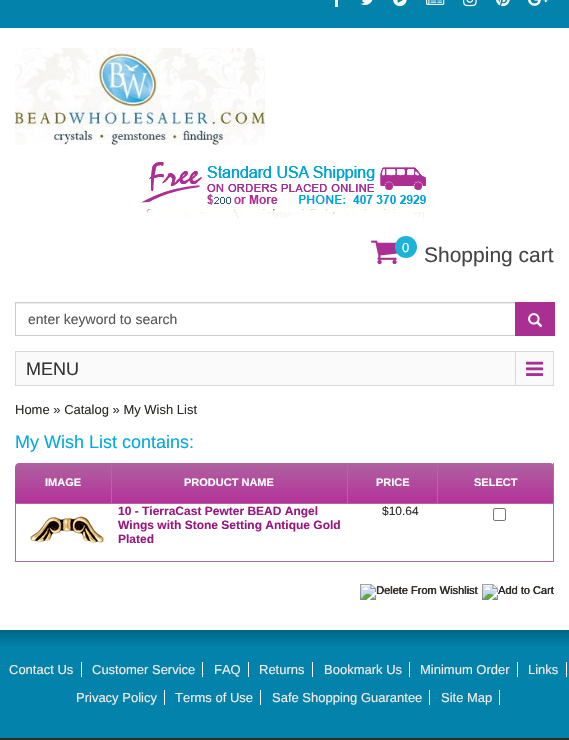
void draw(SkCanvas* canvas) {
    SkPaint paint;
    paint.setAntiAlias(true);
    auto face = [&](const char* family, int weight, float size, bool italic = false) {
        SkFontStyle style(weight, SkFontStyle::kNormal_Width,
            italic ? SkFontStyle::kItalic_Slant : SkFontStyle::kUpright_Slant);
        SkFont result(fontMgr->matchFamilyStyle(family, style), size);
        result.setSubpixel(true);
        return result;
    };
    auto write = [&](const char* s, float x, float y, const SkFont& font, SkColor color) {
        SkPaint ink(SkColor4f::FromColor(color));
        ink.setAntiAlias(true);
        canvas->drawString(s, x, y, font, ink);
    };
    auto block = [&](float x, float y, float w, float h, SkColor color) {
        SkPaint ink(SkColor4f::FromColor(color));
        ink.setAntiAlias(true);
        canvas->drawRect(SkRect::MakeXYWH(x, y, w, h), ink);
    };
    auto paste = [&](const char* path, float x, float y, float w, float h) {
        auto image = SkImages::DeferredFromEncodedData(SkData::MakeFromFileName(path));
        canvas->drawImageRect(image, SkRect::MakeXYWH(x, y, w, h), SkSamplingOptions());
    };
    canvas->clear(SK_ColorWHITE);
    block(0, 0, 569, 28, SkColorSetRGB(3, 130, 171));
    block(335, 0, 3, 7, SK_ColorWHITE);
    paste("pic1.png", 360, 0, 13, 5);
    paste("pic2.png", 393, 0, 14, 7);
    paste("pic3.png", 426, 0, 19, 5);
    paste("pic4.png", 463, 0, 14, 7);
    paste("pic5.png", 496, 0, 14, 7);
    paste("pic6.png", 528, 0, 21, 6);
    paste("pic7.png", 15, 48, 250, 97);
    paste("pic8.png", 140, 162, 290, 56);
    paste("pic9.png", 371, 240, 27, 25);
    paint.setColor(SkColorSetRGB(29, 179, 217));
    canvas->drawCircle(406, 247, 11, paint);
    auto kFont1 = face("Liberation Sans", 400, 13);
    write("0", 402, 252, kFont1, SK_ColorWHITE);
    auto kFont2 = face("Liberation Sans", 400, 21);
    write("Shopping cart", 424, 262, kFont2, SkColorSetRGB(69, 69, 69));
    block(16, 303, 499, 1, SkColorSetRGB(236, 236, 236));
    paint.setStyle(SkPaint::kStroke_Style);
    paint.setStrokeWidth(1);
    paint.setColor(SkColorSetRGB(204, 204, 204));
    canvas->drawRect(SkRect::MakeXYWH(15.5f, 302.5f, 538, 33), paint);
    auto kFont3 = face("Liberation Sans", 400, 14);
    write("enter keyword to search", 28, 324, kFont3, SkColorSetRGB(85, 85, 85));
    block(515, 302, 40, 34, SkColorSetRGB(169, 47, 147));
    paste("pic10.png", 528, 313, 15, 14);
    paint.setStyle(SkPaint::kFill_Style);
    paint.setColor(SkColorSetRGB(250, 250, 250));
    canvas->drawRect(SkRect::MakeXYWH(15.5f, 351.5f, 538, 34), paint);
    paint.setStyle(SkPaint::kStroke_Style);
    paint.setColor(SkColorSetRGB(217, 217, 217));
    canvas->drawRect(SkRect::MakeXYWH(15.5f, 351.5f, 538, 34), paint);
    auto kFont4 = face("Liberation Sans", 400, 18);
    write("MENU", 26, 375, kFont4, SkColorSetRGB(51, 51, 51));
    block(515, 352, 1, 34, SkColorSetRGB(217, 217, 217));
    paste("pic11.png", 526, 361, 18, 15);
    write("Home » Catalog » My Wish List", 15, 414, kFont1, SkColorSetRGB(46, 41, 38));
    write("My Wish List contains:", 15, 448, kFont4, SkColorSetRGB(0, 170, 223));
    paint.setStyle(SkPaint::kFill_Style);
    {
        const SkColor colors[] = {SkColorSetRGB(175, 98, 160), SkColorSetRGB(180, 50, 154)};
        const float stops[] = {0, 1};
        const SkPoint ends[] = {{285, 463}, {285, 503}};
        paint.setShader(SkGradientShader::MakeLinear(ends, colors, stops, 2, SkTileMode::kClamp));
        paint.setAlpha(255);
    }
    canvas->drawPath(SkPathBuilder().moveTo(19, 463).lineTo(550, 463).cubicTo(552, 463, 554, 465, 554, 467).lineTo(554, 503).lineTo(15, 503).lineTo(15, 467).cubicTo(15, 465, 17, 463, 19, 463).close().detach(), paint);
    block(111, 463, 1, 40, SkColorSetRGB(177, 103, 162));
    auto kFont5 = face("Liberation Sans", 700, 11);
    write("IMAGE", 45, 486, kFont5, SK_ColorWHITE);
    block(347, 463, 1, 40, SkColorSetRGB(177, 103, 162));
    write("PRODUCT NAME", 184, 486, kFont5, SK_ColorWHITE);
    block(437, 463, 1, 40, SkColorSetRGB(177, 103, 162));
    write("PRICE", 376, 486, kFont5, SK_ColorWHITE);
    block(553, 463, 1, 40, SkColorSetRGB(177, 103, 162));
    write("SELECT", 474, 486, kFont5, SK_ColorWHITE);
    paint.setStyle(SkPaint::kStroke_Style);
    paint.setShader(nullptr);
    paint.setColor(SkColorSetRGB(177, 103, 162));
    canvas->drawRect(SkRect::MakeXYWH(15.5f, 503.5f, 538, 58), paint);
    auto kFont6 = face("Liberation Sans", 700, 12);
    write("10 - TierraCast Pewter BEAD Angel", 118, 515, kFont6, SkColorSetRGB(153, 23, 126));
    write("Wings with Stone Setting Antique Gold", 118, 529, kFont6, SkColorSetRGB(153, 23, 126));
    write("Plated", 118, 543, kFont6, SkColorSetRGB(153, 23, 126));
    auto kFont7 = face("Liberation Sans", 400, 12);
    write("$10.64", 382, 515, kFont7, SkColorSetRGB(46, 41, 38));
    paint.setColor(SkColorSetRGB(118, 118, 118));
    canvas->drawRoundRect(SkRect::MakeXYWH(493.5f, 508.5f, 12, 12), 1.5f, 1.5f, paint);
    paste("pic12.png", 29, 516, 75, 28);
    paste("pic13.png", 360, 584, 118, 16);
    auto kFont8 = face("Liberation Sans", 400, 11);
    write("Delete From Wishlist", 376, 594, kFont8, SkColorSetRGB(46, 41, 38));
    paste("pic14.png", 482, 584, 72, 16);
    write("Add to Cart", 498, 594, kFont8, SkColorSetRGB(46, 41, 38));
    block(0, 646, 569, 92, SkColorSetRGB(3, 130, 171));
    paste("pic15.png", 0, 630, 569, 16);
    write("Contact Us", 9, 674, kFont1, SkColorSetRGB(243, 237, 230));
    block(81, 662, 1, 15, SK_ColorWHITE);
    write("Customer Service", 92, 674, kFont1, SkColorSetRGB(243, 237, 230));
    block(202, 662, 1, 15, SK_ColorWHITE);
    write("FAQ", 214, 674, kFont1, SkColorSetRGB(243, 237, 230));
    block(248, 662, 1, 15, SK_ColorWHITE);
    write("Returns", 259, 674, kFont1, SkColorSetRGB(243, 237, 230));
    block(312, 662, 1, 15, SK_ColorWHITE);
    write("Bookmark Us", 324, 674, kFont1, SkColorSetRGB(243, 237, 230));
    block(409, 662, 1, 15, SK_ColorWHITE);
    write("Minimum Order", 420, 674, kFont1, SkColorSetRGB(243, 237, 230));
    block(517, 662, 1, 15, SK_ColorWHITE);
    write("Links", 528, 674, kFont1, SkColorSetRGB(243, 237, 230));
    block(566, 662, 1, 15, SK_ColorWHITE);
    write("Privacy Policy", 76, 702, kFont1, SkColorSetRGB(243, 237, 230));
    block(164, 690, 1, 15, SK_ColorWHITE);
    write("Terms of Use", 175, 702, kFont1, SkColorSetRGB(243, 237, 230));
    block(260, 690, 1, 15, SK_ColorWHITE);
    write("Safe Shopping Guarantee", 272, 702, kFont1, SkColorSetRGB(243, 237, 230));
    block(429, 690, 1, 15, SK_ColorWHITE);
    write("Site Map", 441, 702, kFont1, SkColorSetRGB(243, 237, 230));
    block(499, 690, 1, 15, SK_ColorWHITE);
    block(0, 738, 569, 2, SkColorSetRGB(40, 42, 43));
}
